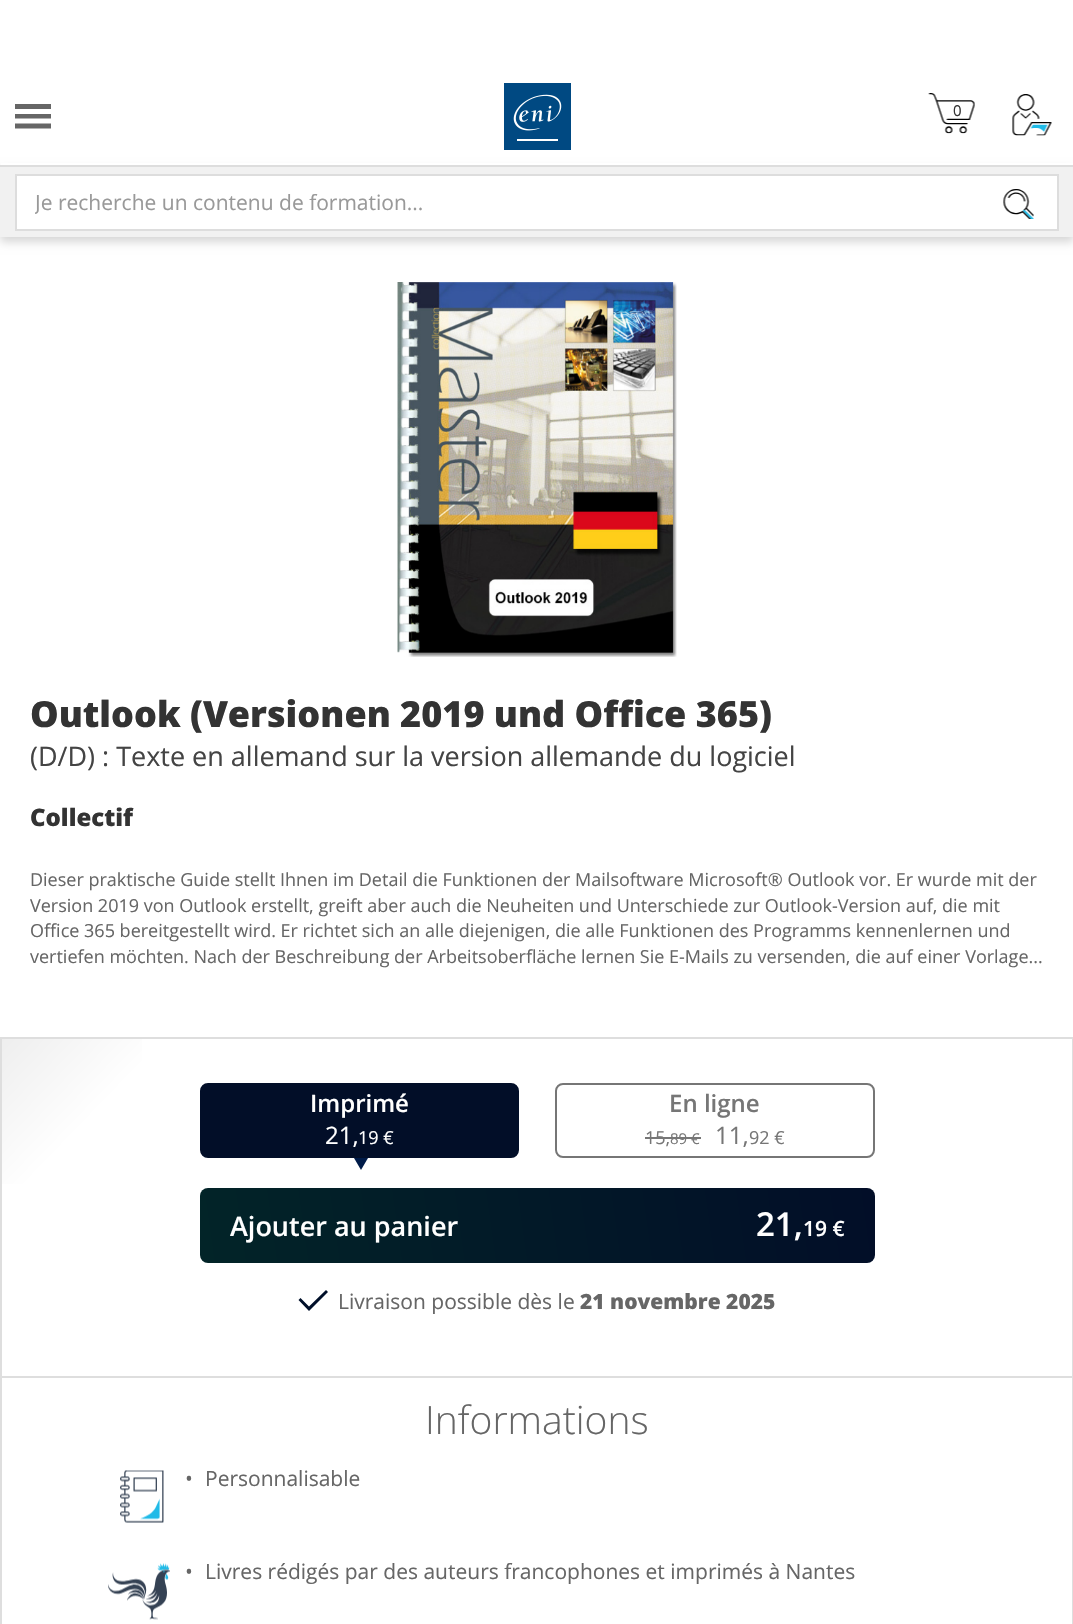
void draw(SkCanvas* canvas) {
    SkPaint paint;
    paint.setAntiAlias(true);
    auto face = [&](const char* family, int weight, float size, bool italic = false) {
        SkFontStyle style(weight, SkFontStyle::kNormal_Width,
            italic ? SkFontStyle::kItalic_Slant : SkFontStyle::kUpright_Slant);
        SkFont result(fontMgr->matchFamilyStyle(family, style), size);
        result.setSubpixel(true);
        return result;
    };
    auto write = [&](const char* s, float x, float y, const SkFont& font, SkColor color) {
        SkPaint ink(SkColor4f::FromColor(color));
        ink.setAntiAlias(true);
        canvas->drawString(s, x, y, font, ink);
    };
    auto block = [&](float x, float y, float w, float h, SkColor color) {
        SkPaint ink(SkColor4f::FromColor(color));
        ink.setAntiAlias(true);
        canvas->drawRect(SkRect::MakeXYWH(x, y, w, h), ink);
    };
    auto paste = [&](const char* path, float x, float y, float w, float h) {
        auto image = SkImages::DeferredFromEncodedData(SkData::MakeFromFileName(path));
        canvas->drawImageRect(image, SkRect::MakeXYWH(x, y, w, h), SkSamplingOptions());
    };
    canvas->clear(SK_ColorWHITE);
    paint.setColor(SkColorSetRGB(102, 102, 102));
    canvas->drawPath(SkPathBuilder().moveTo(15, 104).lineTo(51, 104).lineTo(51, 109).lineTo(15, 109).close().moveTo(15, 114).lineTo(51, 114).lineTo(51, 118.5f).lineTo(15, 118.5f).close().moveTo(15, 123.5f).lineTo(51, 123.5f).lineTo(51, 128.5f).lineTo(15, 128.5f).close().detach(), paint);
    paste("pic1.png", 504, 83, 67, 67);
    paste("pic2.png", 928, 93, 47, 41);
    auto kFont1 = face("Open Sans", 400, 15);
    write("0", 953, 116, kFont1, SkColorSetRGB(51, 51, 51));
    paste("pic3.png", 1012, 94, 40, 42);
    paint.setColor(SkColorSetARGB(41, 0, 0, 0));
    paint.setMaskFilter(SkMaskFilter::MakeBlur(kNormal_SkBlurStyle, 4.5f));
    canvas->drawRect(SkRect::MakeXYWH(0, 170, 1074, 72), paint);
    paint.setMaskFilter(nullptr);
    block(1, 163, 1072, 2, SK_ColorWHITE);
    block(0, 167, 1073, 70, SkColorSetRGB(241, 241, 241));
    block(0, 165, 1073, 2, SkColorSetRGB(221, 221, 221));
    paint.setColor(SK_ColorWHITE);
    canvas->drawRect(SkRect::MakeXYWH(16, 175, 1042, 55), paint);
    paint.setStyle(SkPaint::kStroke_Style);
    paint.setStrokeWidth(2);
    paint.setColor(SkColorSetRGB(221, 221, 221));
    canvas->drawRect(SkRect::MakeXYWH(16, 175, 1042, 55), paint);
    canvas->save();
    canvas->clipRect(SkRect::MakeXYWH(35, 188, 945, 28));
    auto kFont2 = face("Open Sans", 400, 21);
    write("Je recherche un contenu de formation...", 35, 210, kFont2, SkColorSetRGB(153, 153, 153));
    canvas->restore();
    paste("pic4.png", 1003, 189, 31, 30);
    paste("pic5.png", 397, 282, 280, 375);
    auto kFont3 = face("Open Sans", 800, 36);
    write("Outlook (Versionen 2019 und Office 365)", 30, 727, kFont3, SkColorSetRGB(51, 51, 51));
    auto kFont4 = face("Open Sans", 400, 27);
    write("(D/D) : Texte en allemand sur la version allemande du logiciel", 30, 766, kFont4, SkColorSetRGB(68, 68, 68));
    auto kFont5 = face("Open Sans", 800, 24);
    write("Collectif", 30, 826, kFont5, SkColorSetRGB(51, 51, 51));
    auto kFont6 = face("Open Sans", 400, 18);
    write("Dieser praktische Guide stellt Ihnen im Detail die Funktionen der Mailsoftware Microsoft® Outlook vor. Er wurde mit der", 30, 886, kFont6, SkColorSetRGB(102, 102, 102));
    write("Version 2019 von Outlook erstellt, greift aber auch die Neuheiten und Unterschiede zur Outlook-Version auf, die mit", 30, 912, kFont6, SkColorSetRGB(102, 102, 102));
    write("Office 365 bereitgestellt wird. Er richtet sich an alle diejenigen, die alle Funktionen des Programms kennenlernen und", 30, 937, kFont6, SkColorSetRGB(102, 102, 102));
    write("vertiefen möchten. Nach der Beschreibung der Arbeitsoberfläche lernen Sie E-Mails zu versenden, die auf einer Vorlage...", 30, 963, kFont6, SkColorSetRGB(102, 102, 102));
    paint.setStyle(SkPaint::kFill_Style);
    {
        const SkColor colors[] = {SkColorSetRGB(238, 238, 238), SK_ColorWHITE, SK_ColorWHITE, SK_ColorWHITE};
        const float stops[] = {0, 0.1f, 0.8f, 0.99f};
        const SkPoint ends[] = {{106, 930}, {968, 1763}};
        paint.setShader(SkGradientShader::MakeLinear(ends, colors, stops, 4, SkTileMode::kClamp));
        paint.setAlpha(255);
    }
    canvas->drawRect(SkRect::MakeXYWH(2, 1039, 140, 145), paint);
    paint.setStyle(SkPaint::kStroke_Style);
    paint.setShader(nullptr);
    paint.setColor(SkColorSetRGB(222, 222, 222));
    canvas->drawRect(SkRect::MakeXYWH(1, 1038, 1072, 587), paint);
    paint.setStyle(SkPaint::kFill_Style);
    paint.setColor(SkColorSetRGB(2, 14, 40));
    canvas->drawRoundRect(SkRect::MakeXYWH(201, 1084, 317, 73), 7, 7, paint);
    paint.setStyle(SkPaint::kStroke_Style);
    canvas->drawRoundRect(SkRect::MakeXYWH(201, 1084, 317, 73), 7, 7, paint);
    auto kFont7 = face("Open Sans", 600, 24);
    write("Imprimé", 310, 1112, kFont7, SK_ColorWHITE);
    auto kFont8 = face("Open Sans", 400, 24);
    write("21,", 325, 1144, kFont8, SK_ColorWHITE);
    write("19 €", 358, 1144, kFont6, SK_ColorWHITE);
    paint.setStyle(SkPaint::kFill_Style);
    paint.setColor(SkColorSetRGB(0, 27, 73));
    canvas->drawPath(SkPathBuilder().moveTo(361, 1170).lineTo(354, 1158).lineTo(368, 1158).close().detach(), paint);
    paint.setStyle(SkPaint::kStroke_Style);
    paint.setColor(SkColorSetRGB(118, 118, 118));
    canvas->drawRoundRect(SkRect::MakeXYWH(556, 1084, 318, 73), 7, 7, paint);
    write("En ligne", 669, 1112, kFont7, SkColorSetRGB(118, 118, 118));
    write("15,", 645, 1144, kFont6, SkColorSetRGB(118, 118, 118));
    block(645, 1137, 26, 2, SkColorSetRGB(118, 118, 118));
    write("89 €", 670, 1144, kFont1, SkColorSetRGB(118, 118, 118));
    block(671, 1137, 30, 2, SkColorSetRGB(118, 118, 118));
    write("11,", 715, 1144, kFont8, SkColorSetRGB(118, 118, 118));
    write("92 €", 749, 1144, kFont6, SkColorSetRGB(118, 118, 118));
    paint.setStyle(SkPaint::kFill_Style);
    {
        const SkColor colors[] = {SkColorSetRGB(2, 36, 40), SkColorSetRGB(2, 14, 40), SkColorSetRGB(39, 75, 154), SkColorSetRGB(2, 14, 40), SkColorSetRGB(2, 14, 40)};
        const float stops[] = {0, 0.44f, 0.49f, 0.56f, 1};
        const SkPoint ends[] = {{209, 1333}, {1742, 1118}};
        paint.setShader(SkGradientShader::MakeLinear(ends, colors, stops, 5, SkTileMode::kClamp));
        paint.setAlpha(255);
    }
    canvas->drawRoundRect(SkRect::MakeXYWH(200, 1188, 675, 75), 8, 8, paint);
    auto kFont9 = face("Open Sans", 600, 27);
    write("Ajouter au panier", 230, 1236, kFont9, SK_ColorWHITE);
    auto kFont10 = face("Open Sans", 600, 33);
    write("21,", 756, 1236, kFont10, SK_ColorWHITE);
    auto kFont11 = face("Open Sans", 600, 21);
    write("19 €", 803, 1236, kFont11, SK_ColorWHITE);
    paint.setShader(nullptr);
    paint.setColor(SkColorSetRGB(0, 15, 41));
    canvas->drawPath(SkPathBuilder().moveTo(309, 1311).lineTo(298.5f, 1300).lineTo(300.5f, 1298).lineTo(309, 1306.5f).lineTo(326, 1290).lineTo(328, 1292).close().detach(), paint);
    write("Livraison possible dès le", 338, 1309, kFont2, SkColorSetRGB(102, 102, 102));
    auto kFont12 = face("Open Sans", 800, 21);
    write("21 novembre 2025", 580, 1309, kFont12, SkColorSetRGB(102, 102, 102));
    block(2, 1376, 1071, 2, SkColorSetRGB(222, 222, 222));
    auto kFont13 = face("Open Sans", 300, 39);
    write("Informations", 425, 1434, kFont13, SkColorSetRGB(102, 102, 102));
    paste("pic6.png", 120, 1470, 44, 53);
    write("•", 185, 1486, kFont2, SkColorSetRGB(102, 102, 102));
    write("Personnalisable", 205, 1486, kFont2, SkColorSetRGB(102, 102, 102));
    paste("pic7.png", 108, 1563, 62, 57);
    write("•", 185, 1579, kFont2, SkColorSetRGB(102, 102, 102));
    write("Livres rédigés par des auteurs francophones et imprimés à Nantes", 205, 1579, kFont2, SkColorSetRGB(102, 102, 102));
}
